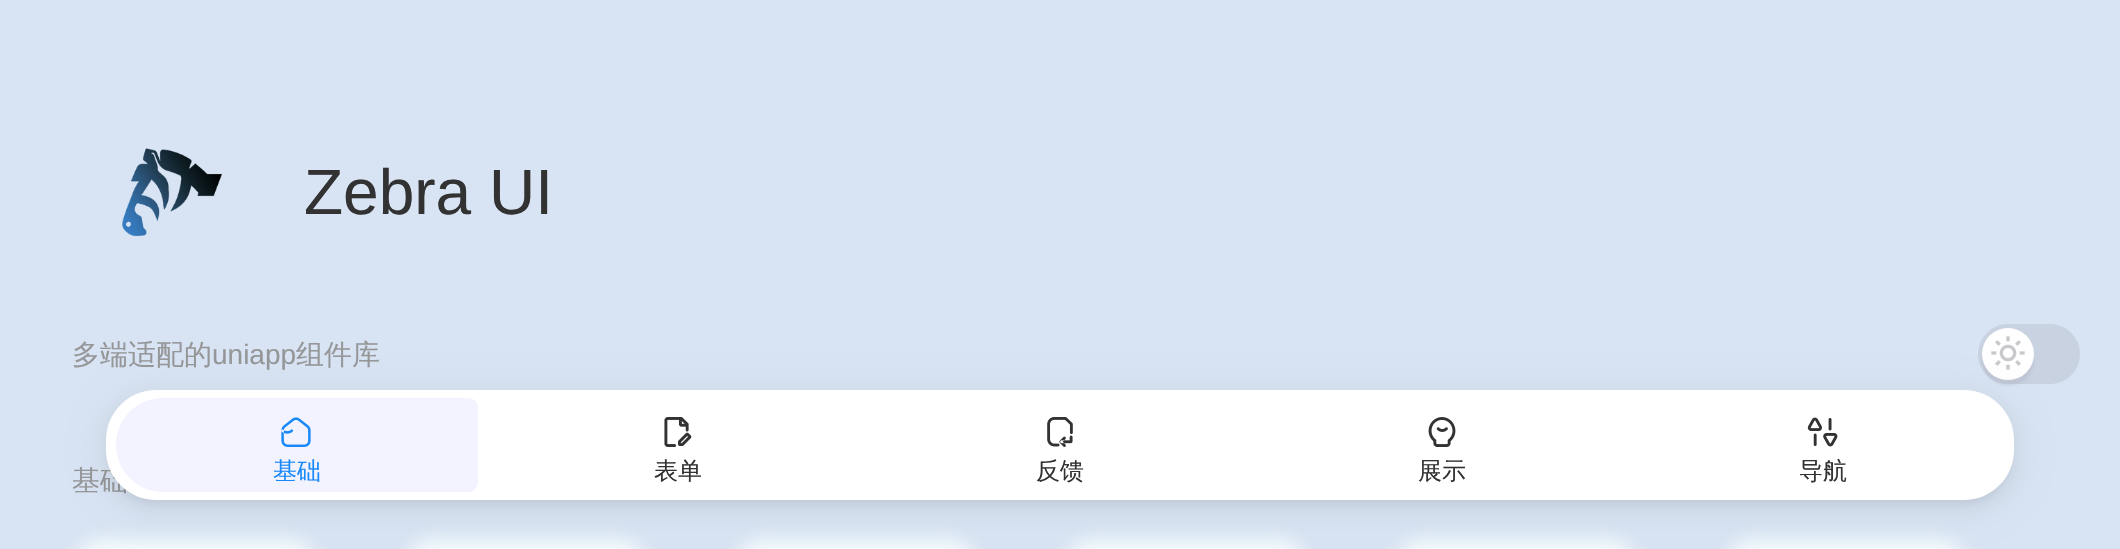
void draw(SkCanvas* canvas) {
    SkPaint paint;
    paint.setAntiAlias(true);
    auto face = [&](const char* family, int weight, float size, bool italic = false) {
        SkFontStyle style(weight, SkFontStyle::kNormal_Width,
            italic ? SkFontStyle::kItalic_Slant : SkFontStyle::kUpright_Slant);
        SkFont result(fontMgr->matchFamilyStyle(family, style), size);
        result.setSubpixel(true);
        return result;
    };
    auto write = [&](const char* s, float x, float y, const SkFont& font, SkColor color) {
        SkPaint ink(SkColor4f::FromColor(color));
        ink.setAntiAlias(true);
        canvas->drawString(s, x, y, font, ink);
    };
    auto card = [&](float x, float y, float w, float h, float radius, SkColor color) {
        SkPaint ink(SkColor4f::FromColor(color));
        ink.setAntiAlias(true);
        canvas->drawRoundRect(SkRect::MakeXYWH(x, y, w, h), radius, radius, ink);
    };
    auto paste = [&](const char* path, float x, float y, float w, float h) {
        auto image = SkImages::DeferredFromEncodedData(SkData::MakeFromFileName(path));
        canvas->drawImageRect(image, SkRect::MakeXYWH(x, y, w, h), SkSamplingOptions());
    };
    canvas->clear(SkColorSetRGB(216, 227, 243));
    paste("pic1.png", 122, 148, 100, 89);
    auto kFont1 = face("Liberation Sans", 400, 64);
    write("Zebra UI", 304, 214, kFont1, SkColorSetRGB(50, 50, 51));
    auto kFont2 = face("WenQuanYi Zen Hei", 500, 28);
    write("多端适配的", 72, 364, kFont2, SkColorSetRGB(150, 151, 153));
    auto kFont3 = face("Liberation Sans", 400, 28);
    write("uniapp", 212, 364, kFont3, SkColorSetRGB(150, 151, 153));
    write("组件库", 296, 364, kFont2, SkColorSetRGB(150, 151, 153));
    card(1978, 324, 102, 60, 30, SkColorSetRGB(201, 210, 225));
    paint.setColor(SkColorSetARGB(13, 0, 0, 0));
    paint.setMaskFilter(SkMaskFilter::MakeBlur(kNormal_SkBlurStyle, 1));
    canvas->drawRoundRect(SkRect::MakeXYWH(1982, 334, 52, 52), 26, 26, paint);
    paint.setMaskFilter(nullptr);
    paint.setColor(SK_ColorWHITE);
    canvas->drawCircle(2008, 354, 26, paint);
    paste("pic2.png", 1991, 336, 34, 34);
    write("基础", 72, 490, kFont2, SkColorSetRGB(150, 151, 153));
    paint.setColor(SkColorSetRGB(248, 255, 255));
    paint.setMaskFilter(SkMaskFilter::MakeBlur(kNormal_SkBlurStyle, 10));
    canvas->drawRoundRect(SkRect::MakeXYWH(76, 540, 240, 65), 26, 26, paint);
    paint.setMaskFilter(nullptr);
    paint.setMaskFilter(SkMaskFilter::MakeBlur(kNormal_SkBlurStyle, 10));
    canvas->drawRoundRect(SkRect::MakeXYWH(406, 540, 240, 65), 26, 26, paint);
    paint.setMaskFilter(nullptr);
    paint.setMaskFilter(SkMaskFilter::MakeBlur(kNormal_SkBlurStyle, 10));
    canvas->drawRoundRect(SkRect::MakeXYWH(736, 540, 240, 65), 26, 26, paint);
    paint.setMaskFilter(nullptr);
    paint.setMaskFilter(SkMaskFilter::MakeBlur(kNormal_SkBlurStyle, 10));
    canvas->drawRoundRect(SkRect::MakeXYWH(1066, 540, 240, 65), 26, 26, paint);
    paint.setMaskFilter(nullptr);
    paint.setMaskFilter(SkMaskFilter::MakeBlur(kNormal_SkBlurStyle, 10));
    canvas->drawRoundRect(SkRect::MakeXYWH(1396, 540, 240, 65), 26, 26, paint);
    paint.setMaskFilter(nullptr);
    paint.setMaskFilter(SkMaskFilter::MakeBlur(kNormal_SkBlurStyle, 10));
    canvas->drawRoundRect(SkRect::MakeXYWH(1726, 540, 240, 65), 26, 26, paint);
    paint.setMaskFilter(nullptr);
    paint.setColor(SkColorSetARGB(13, 0, 0, 0));
    paint.setMaskFilter(SkMaskFilter::MakeBlur(kNormal_SkBlurStyle, 15));
    canvas->drawRoundRect(SkRect::MakeXYWH(100, 390, 1920, 122), 56, 56, paint);
    paint.setMaskFilter(nullptr);
    paint.setColor(SkColorSetARGB(20, 0, 0, 0));
    paint.setMaskFilter(SkMaskFilter::MakeBlur(kNormal_SkBlurStyle, 5));
    canvas->drawRoundRect(SkRect::MakeXYWH(110, 402, 1900, 102), 46, 46, paint);
    paint.setMaskFilter(nullptr);
    card(106, 390, 1908, 110, 50, SK_ColorWHITE);
    paint.setColor(SkColorSetRGB(242, 243, 255));
    canvas->drawPath(SkPathBuilder().moveTo(163, 398).lineTo(468, 398).cubicTo(473.5f, 398, 478, 402.5f, 478, 408).lineTo(478, 482).cubicTo(478, 487.5f, 473.5f, 492, 468, 492).lineTo(163, 492).cubicTo(137, 492, 116, 471, 116, 445).cubicTo(116, 419, 137, 398, 163, 398).close().detach(), paint);
    paste("pic3.png", 1807, 417, 31, 30);
    auto kFont4 = face("WenQuanYi Zen Hei", 500, 24);
    write("导航", 1799, 479, kFont4, SkColorSetRGB(50, 50, 51));
    paste("pic4.png", 281, 417, 30, 30);
    write("基础", 273, 479, kFont4, SkColorSetRGB(25, 137, 250));
    paste("pic5.png", 664, 417, 28, 30);
    write("表单", 654, 479, kFont4, SkColorSetRGB(50, 50, 51));
    paste("pic6.png", 1047, 417, 26, 30);
    write("反馈", 1036, 479, kFont4, SkColorSetRGB(50, 50, 51));
    paste("pic7.png", 1428, 417, 28, 30);
    write("展示", 1418, 479, kFont4, SkColorSetRGB(50, 50, 51));
}
